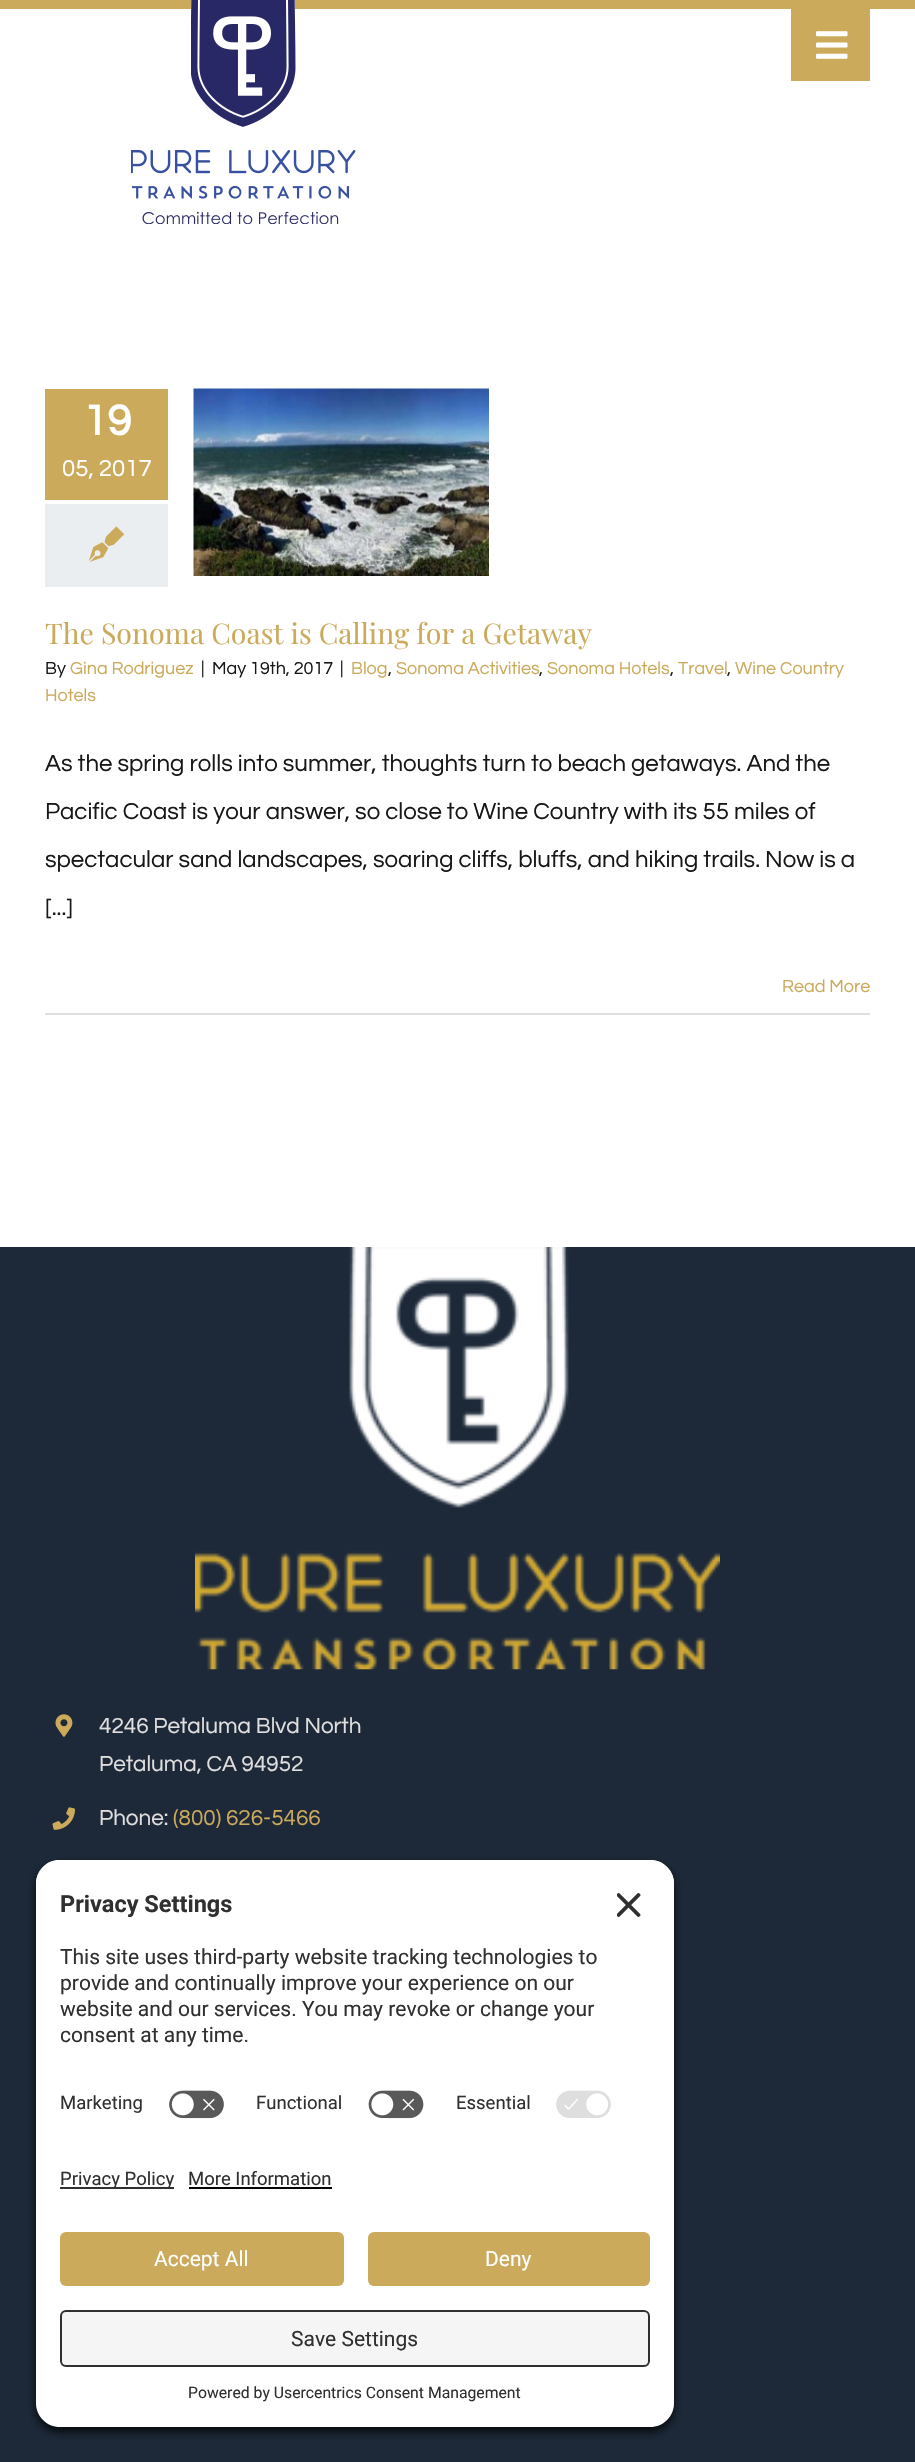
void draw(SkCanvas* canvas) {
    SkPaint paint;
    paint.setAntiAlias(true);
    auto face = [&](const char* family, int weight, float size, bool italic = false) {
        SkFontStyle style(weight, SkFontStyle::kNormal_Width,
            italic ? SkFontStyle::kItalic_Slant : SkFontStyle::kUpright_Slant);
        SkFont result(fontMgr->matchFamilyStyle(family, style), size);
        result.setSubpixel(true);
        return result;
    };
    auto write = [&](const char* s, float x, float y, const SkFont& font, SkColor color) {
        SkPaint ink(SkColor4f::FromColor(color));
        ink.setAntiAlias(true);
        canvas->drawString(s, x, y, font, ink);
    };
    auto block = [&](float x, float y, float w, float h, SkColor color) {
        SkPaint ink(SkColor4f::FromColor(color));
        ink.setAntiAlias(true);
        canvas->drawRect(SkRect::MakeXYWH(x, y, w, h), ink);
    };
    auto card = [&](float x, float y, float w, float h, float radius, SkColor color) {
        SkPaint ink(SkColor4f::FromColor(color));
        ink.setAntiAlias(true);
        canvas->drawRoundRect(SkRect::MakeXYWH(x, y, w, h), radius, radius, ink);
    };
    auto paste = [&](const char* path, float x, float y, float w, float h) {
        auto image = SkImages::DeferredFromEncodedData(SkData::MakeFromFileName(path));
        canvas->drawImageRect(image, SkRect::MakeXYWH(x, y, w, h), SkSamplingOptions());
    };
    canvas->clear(SK_ColorWHITE);
    block(0, 0, 915, 9, SkColorSetRGB(203, 170, 92));
    paste("pic1.png", 191, 0, 105, 127);
    paste("pic2.png", 131, 150, 225, 74);
    block(791, 9, 79, 72, SkColorSetRGB(203, 170, 92));
    paste("pic3.png", 816, 31, 32, 28);
    block(45, 389, 123, 111, SkColorSetRGB(203, 170, 92));
    auto kFont1 = face("Questrial", 700, 44);
    write("19", 83, 435, kFont1, SK_ColorWHITE);
    auto kFont2 = face("Questrial", 400, 24);
    write("05, 2017", 62, 476, kFont2, SK_ColorWHITE);
    block(45, 504, 123, 83, SkColorSetRGB(235, 238, 241));
    paste("pic4.png", 88, 526, 37, 36);
    paste("pic5.png", 193, 388, 296, 188);
    auto kFont3 = face("Playfair Display", 400, 28.5f);
    write("The Sonoma Coast is Calling for a Getaway", 45, 644, kFont3, SkColorSetRGB(203, 170, 92));
    auto kFont4 = face("Questrial", 400, 18);
    write("By", 45, 674, kFont4, SkColorSetRGB(23, 23, 23));
    write("Gina Rodriguez", 70, 674, kFont4, SkColorSetRGB(203, 170, 92));
    write("|", 201, 674, kFont4, SkColorSetRGB(23, 23, 23));
    write("May 19th, 2017", 212, 674, kFont4, SkColorSetRGB(23, 23, 23));
    write("|", 340, 674, kFont4, SkColorSetRGB(23, 23, 23));
    write("Blog", 351, 674, kFont4, SkColorSetRGB(203, 170, 92));
    write(",", 388, 674, kFont4, SkColorSetRGB(23, 23, 23));
    write("Sonoma Activities", 396, 674, kFont4, SkColorSetRGB(203, 170, 92));
    write(",", 539, 674, kFont4, SkColorSetRGB(23, 23, 23));
    write("Sonoma Hotels", 547, 674, kFont4, SkColorSetRGB(203, 170, 92));
    write(",", 670, 674, kFont4, SkColorSetRGB(23, 23, 23));
    write("Travel", 678, 674, kFont4, SkColorSetRGB(203, 170, 92));
    write(",", 727, 674, kFont4, SkColorSetRGB(23, 23, 23));
    write("Wine Country", 735, 674, kFont4, SkColorSetRGB(203, 170, 92));
    write("Hotels", 45, 701, kFont4, SkColorSetRGB(203, 170, 92));
    write("As the spring rolls into summer, thoughts turn to beach getaways. And the", 45, 771, kFont2, SkColorSetRGB(23, 23, 23));
    write("Pacific Coast is your answer, so close to Wine Country with its 55 miles of", 45, 819, kFont2, SkColorSetRGB(23, 23, 23));
    write("spectacular sand landscapes, soaring cliffs, bluffs, and hiking trails. Now is a", 45, 867, kFont2, SkColorSetRGB(23, 23, 23));
    write("[...]", 45, 915, kFont2, SkColorSetRGB(23, 23, 23));
    block(45, 1013, 825, 2, SkColorSetRGB(224, 222, 222));
    write("Read More", 782, 992, kFont4, SkColorSetRGB(203, 170, 92));
    block(0, 1247, 915, 1215, SkColorSetRGB(29, 41, 57));
    paste("pic6.png", 195, 1247, 525, 423);
    paste("pic7.png", 55, 1714, 18, 23);
    auto kFont5 = face("Questrial", 400, 22.5f);
    write("4246 Petaluma Blvd North", 99, 1733, kFont5, SkColorSetRGB(224, 222, 222));
    write("Petaluma, CA 94952", 99, 1771, kFont5, SkColorSetRGB(224, 222, 222));
    paste("pic8.png", 52, 1807, 23, 23);
    write("Phone:", 99, 1825, kFont5, SkColorSetRGB(224, 222, 222));
    write("(800) 626-5466", 173, 1825, kFont5, SkColorSetRGB(203, 170, 92));
    paint.setColor(SkColorSetARGB(204, 0, 0, 0));
    paint.setMaskFilter(SkMaskFilter::MakeBlur(kNormal_SkBlurStyle, 5));
    canvas->drawRoundRect(SkRect::MakeXYWH(36, 1865, 638, 567), 24, 24, paint);
    paint.setMaskFilter(nullptr);
    paint.setColor(SK_ColorWHITE);
    canvas->drawPath(SkPathBuilder().moveTo(60, 1860).lineTo(650, 1860).cubicTo(663.5f, 1860, 674, 1870.5f, 674, 1884).lineTo(674, 2145).lineTo(36, 2145).lineTo(36, 1884).cubicTo(36, 1870.5f, 46.5f, 1860, 60, 1860).close().detach(), paint);
    canvas->drawPath(SkPathBuilder().moveTo(60, 1860).lineTo(650, 1860).cubicTo(663.5f, 1860, 674, 1870.5f, 674, 1884).lineTo(674, 2079).lineTo(36, 2079).lineTo(36, 1884).cubicTo(36, 1870.5f, 46.5f, 1860, 60, 1860).close().detach(), paint);
    auto kFont6 = face("Roboto", 700, 23.5f);
    write("Privacy Settings", 60, 1912, kFont6, SkColorSetRGB(48, 48, 48));
    paste("pic9.png", 617, 1893, 24, 24);
    auto kFont7 = face("Roboto", 400, 21);
    write("This site uses third-party website tracking technologies to", 60, 1964, kFont7, SkColorSetRGB(48, 48, 48));
    write("provide and continually improve your experience on our", 60, 1990, kFont7, SkColorSetRGB(48, 48, 48));
    write("website and our services. You may revoke or change your", 60, 2016, kFont7, SkColorSetRGB(48, 48, 48));
    write("consent at any time.", 60, 2042, kFont7, SkColorSetRGB(48, 48, 48));
    auto kFont8 = face("Roboto", 400, 18.5f);
    write("Marketing", 60, 2109, kFont8, SkColorSetRGB(48, 48, 48));
    paste("pic10.png", 169, 2090, 55, 29);
    write("Functional", 256, 2109, kFont8, SkColorSetRGB(48, 48, 48));
    paste("pic11.png", 368, 2090, 56, 29);
    write("Essential", 456, 2109, kFont8, SkColorSetRGB(48, 48, 48));
    paste("pic12.png", 556, 2090, 55, 28);
    canvas->drawPath(SkPathBuilder().moveTo(36, 2145).lineTo(674, 2145).lineTo(674, 2403).cubicTo(674, 2416.5f, 663.5f, 2427, 650, 2427).lineTo(60, 2427).cubicTo(46.5f, 2427, 36, 2416.5f, 36, 2403).close().detach(), paint);
    block(60, 2187, 114, 2, SkColorSetRGB(48, 48, 48));
    write("Privacy Policy", 60, 2185, kFont8, SkColorSetRGB(48, 48, 48));
    write("More Information", 188, 2185, kFont8, SkColorSetRGB(48, 48, 48));
    block(189, 2187, 143, 2, SK_ColorBLACK);
    card(60, 2232, 284, 54, 6, SkColorSetRGB(203, 170, 92));
    write("Accept All", 154, 2266, kFont7, SK_ColorWHITE);
    card(368, 2232, 282, 54, 6, SkColorSetRGB(203, 170, 92));
    write("Deny", 485, 2266, kFont7, SK_ColorWHITE);
    paint.setColor(SkColorSetRGB(245, 245, 245));
    canvas->drawRoundRect(SkRect::MakeXYWH(61, 2311, 588, 55), 5, 5, paint);
    paint.setStyle(SkPaint::kStroke_Style);
    paint.setStrokeWidth(2);
    paint.setColor(SkColorSetRGB(48, 48, 48));
    canvas->drawRoundRect(SkRect::MakeXYWH(61, 2311, 588, 55), 5, 5, paint);
    write("Save Settings", 291, 2346, kFont7, SkColorSetRGB(48, 48, 48));
    auto kFont9 = face("Roboto", 400, 15.75f);
    write("Powered by Usercentrics Consent Management", 188, 2398, kFont9, SkColorSetRGB(48, 48, 48));
}
